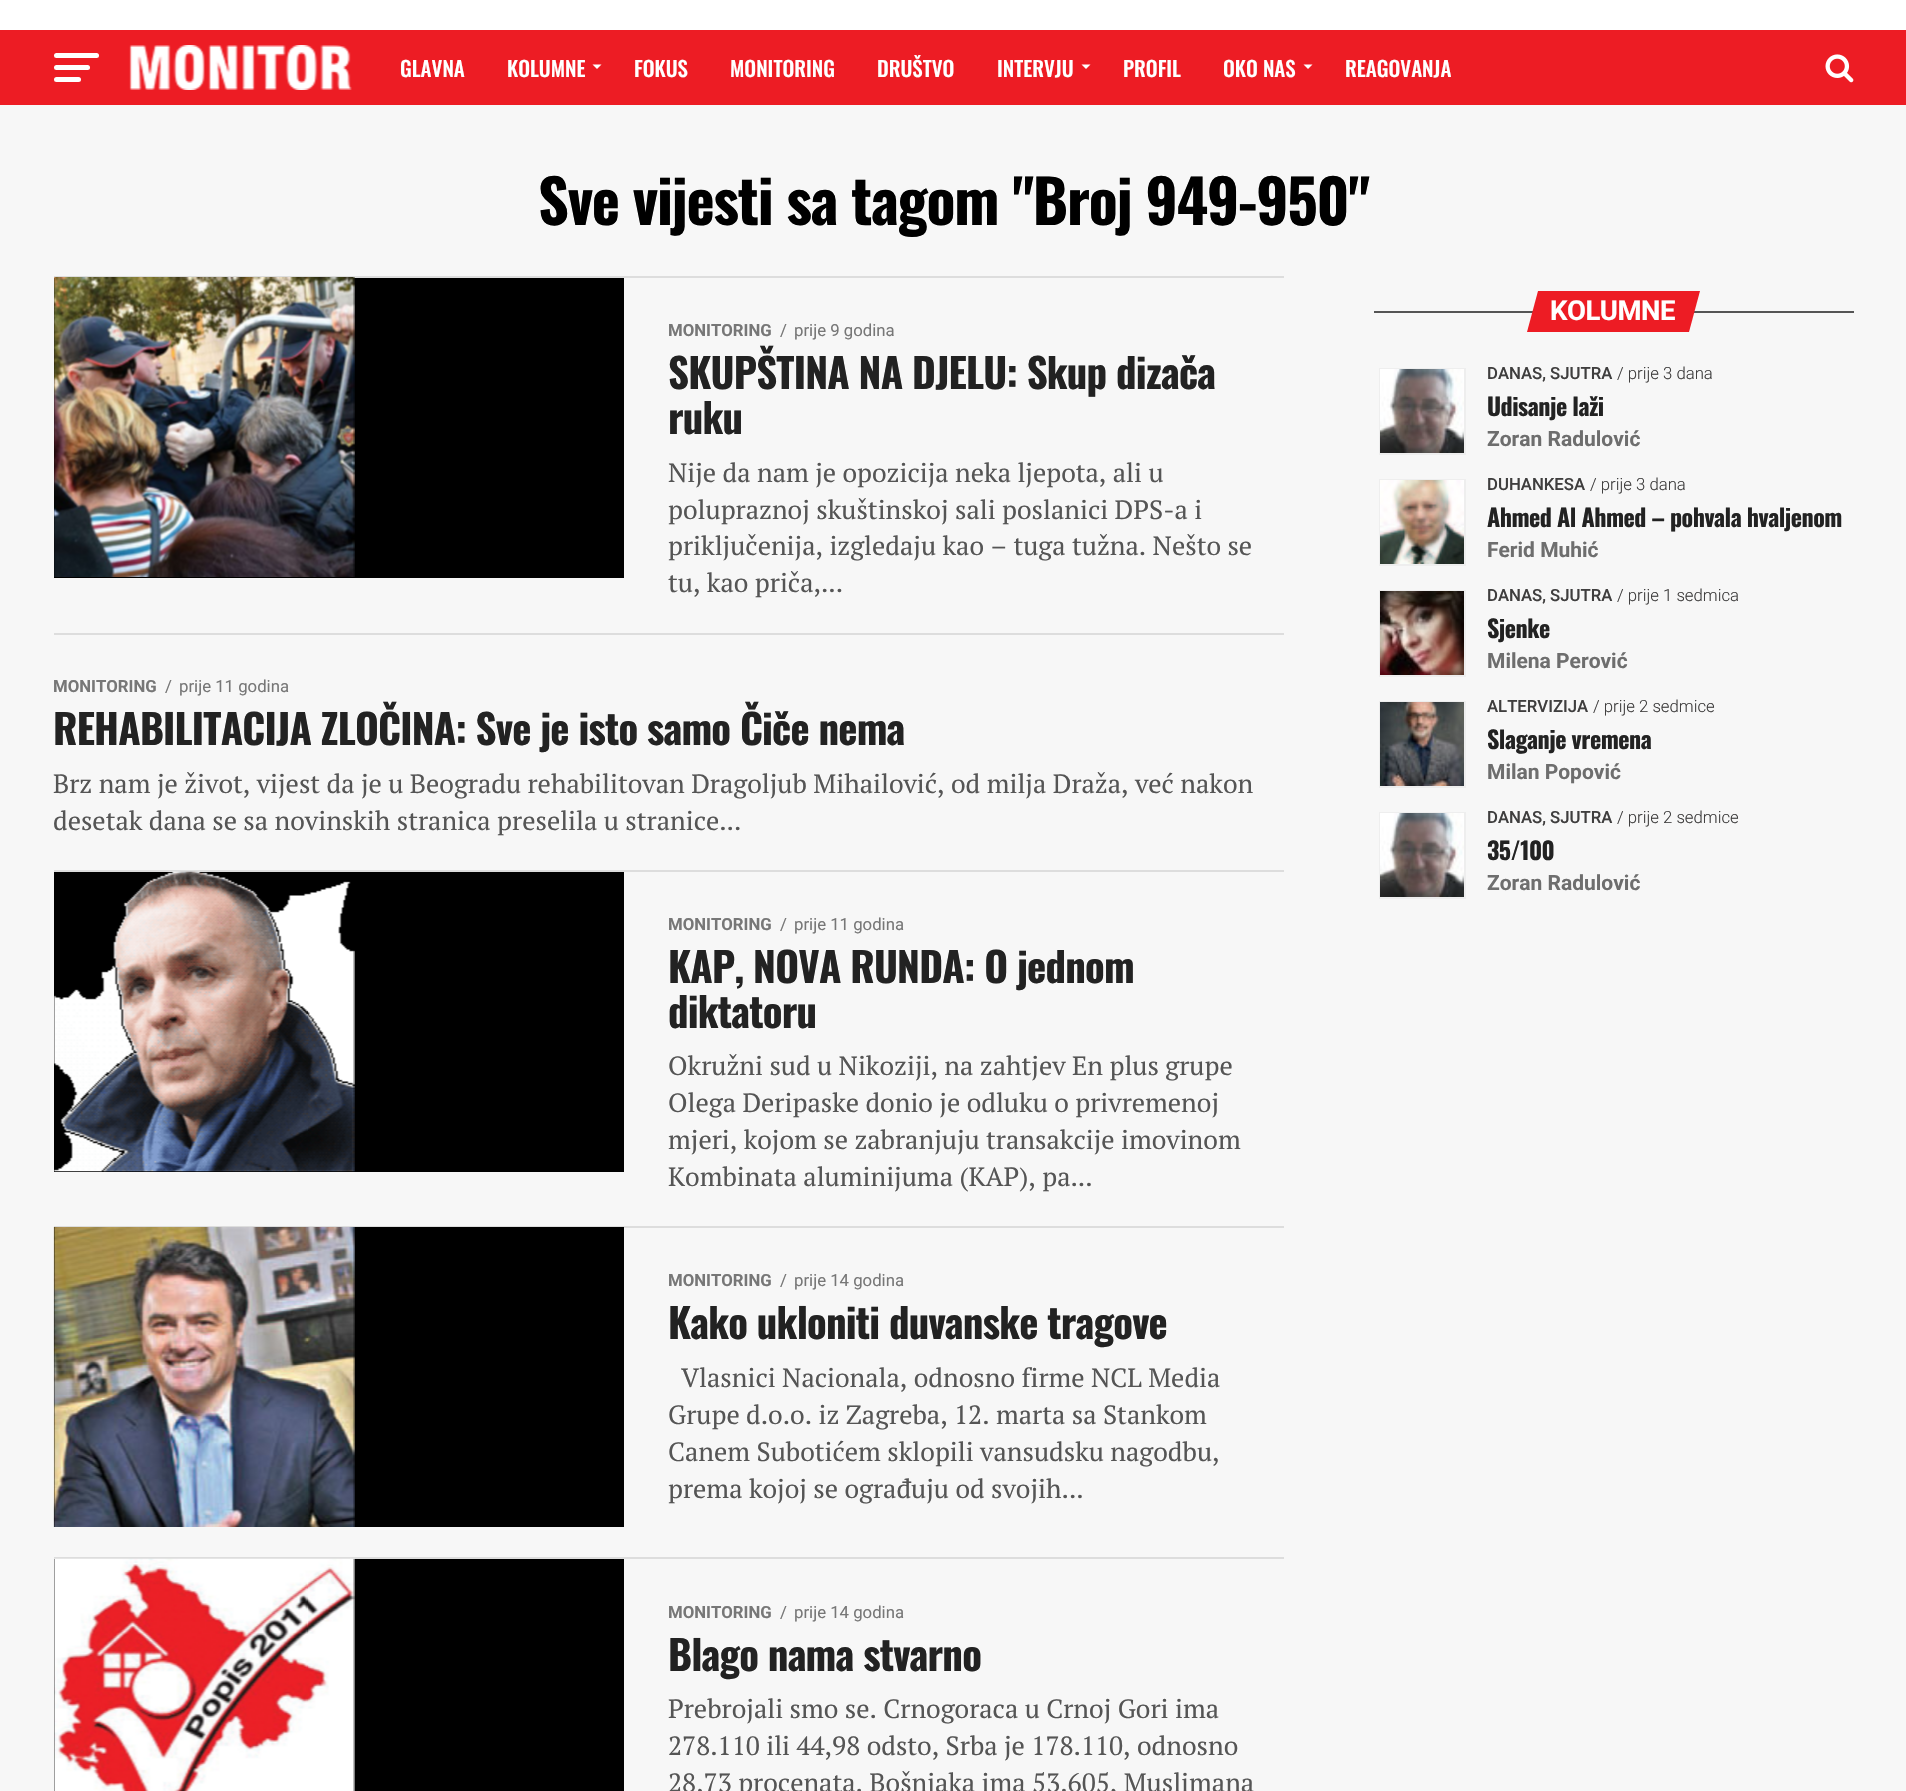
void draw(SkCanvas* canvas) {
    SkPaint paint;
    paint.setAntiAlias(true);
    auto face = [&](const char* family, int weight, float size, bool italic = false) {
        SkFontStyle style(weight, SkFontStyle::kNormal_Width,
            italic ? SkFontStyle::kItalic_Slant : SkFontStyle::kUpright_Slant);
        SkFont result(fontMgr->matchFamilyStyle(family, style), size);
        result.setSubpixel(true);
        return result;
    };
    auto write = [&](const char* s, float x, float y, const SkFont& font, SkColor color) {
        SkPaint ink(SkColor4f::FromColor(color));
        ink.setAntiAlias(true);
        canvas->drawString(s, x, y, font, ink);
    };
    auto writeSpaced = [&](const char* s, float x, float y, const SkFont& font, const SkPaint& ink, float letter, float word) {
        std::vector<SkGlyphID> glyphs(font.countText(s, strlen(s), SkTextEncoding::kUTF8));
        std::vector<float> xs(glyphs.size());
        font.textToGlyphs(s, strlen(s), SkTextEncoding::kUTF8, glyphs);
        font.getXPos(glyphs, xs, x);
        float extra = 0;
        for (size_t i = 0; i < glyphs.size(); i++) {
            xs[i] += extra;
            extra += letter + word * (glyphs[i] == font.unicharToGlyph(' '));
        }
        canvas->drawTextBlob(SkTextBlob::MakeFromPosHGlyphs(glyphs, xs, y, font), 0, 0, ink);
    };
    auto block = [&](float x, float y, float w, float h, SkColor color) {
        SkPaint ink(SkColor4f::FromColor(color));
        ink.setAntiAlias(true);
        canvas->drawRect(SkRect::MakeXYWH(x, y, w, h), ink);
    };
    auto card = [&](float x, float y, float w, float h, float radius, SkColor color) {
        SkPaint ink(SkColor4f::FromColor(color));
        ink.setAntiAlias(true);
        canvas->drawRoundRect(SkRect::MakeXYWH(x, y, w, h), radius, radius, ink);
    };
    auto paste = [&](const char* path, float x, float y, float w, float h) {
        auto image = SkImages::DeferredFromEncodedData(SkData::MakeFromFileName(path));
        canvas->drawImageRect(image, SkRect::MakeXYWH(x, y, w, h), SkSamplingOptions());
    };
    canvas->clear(SK_ColorWHITE);
    block(0, 30, 1906, 75, SkColorSetRGB(237, 28, 36));
    card(54, 53, 45, 5, 2.5f, SK_ColorWHITE);
    card(54, 65, 36, 5, 2.5f, SK_ColorWHITE);
    card(54, 77, 27, 5, 2.5f, SK_ColorWHITE);
    paste("pic1.png", 129, 45, 223, 45);
    auto kFont1 = face("Oswald", 500, 21);
    write("GLAVNA", 400, 77, kFont1, SK_ColorWHITE);
    write("KOLUMNE", 507, 77, kFont1, SK_ColorWHITE);
    paint.setColor(SK_ColorWHITE);
    canvas->drawPath(SkPathBuilder().moveTo(592.5f, 64.5f).lineTo(601.5f, 64.5f).lineTo(597, 69).close().detach(), paint);
    write("FOKUS", 634, 77, kFont1, SK_ColorWHITE);
    write("MONITORING", 730, 77, kFont1, SK_ColorWHITE);
    write("DRUŠTVO", 877, 77, kFont1, SK_ColorWHITE);
    write("INTERVJU", 997, 77, kFont1, SK_ColorWHITE);
    canvas->drawPath(SkPathBuilder().moveTo(1081.5f, 64.5f).lineTo(1090.5f, 64.5f).lineTo(1086, 69).close().detach(), paint);
    write("PROFIL", 1123, 77, kFont1, SK_ColorWHITE);
    write("OKO NAS", 1223, 77, kFont1, SK_ColorWHITE);
    canvas->drawPath(SkPathBuilder().moveTo(1303.5f, 64.5f).lineTo(1312.5f, 64.5f).lineTo(1308, 69).close().detach(), paint);
    write("REAGOVANJA", 1345, 77, kFont1, SK_ColorWHITE);
    paste("pic2.png", 1825, 54, 29, 29);
    block(0, 105, 1906, 1686, SkColorSetRGB(247, 247, 247));
    auto kFont2 = face("Oswald", 700, 60);
    paint.setColor(SK_ColorBLACK);
    writeSpaced("Sve vijesti sa tagom \"Broj 949-950\"", 538, 225, kFont2, paint, -1.2f, 0);
    block(54, 276, 1230, 2, SkColorSetRGB(221, 221, 221));
    block(54, 278, 570, 300, SK_ColorBLACK);
    paste("pic3.png", 54, 277, 301, 300);
    auto kFont3 = face("Roboto", 700, 16.75f);
    write("MONITORING", 668, 336, kFont3, SkColorSetRGB(119, 119, 119));
    auto kFont4 = face("Roboto", 400, 16.75f);
    write("/", 780, 336, kFont4, SkColorSetRGB(119, 119, 119));
    write("prije 9 godina", 794, 336, kFont4, SkColorSetRGB(119, 119, 119));
    auto kFont5 = face("Oswald", 700, 40.8f);
    paint.setColor(SkColorSetRGB(34, 34, 34));
    writeSpaced("SKUPŠTINA NA DJELU: Skup dizača", 668, 389, kFont5, paint, -0.8f, 0);
    writeSpaced("ruku", 668, 434, kFont5, paint, -0.8f, 0);
    auto kFont6 = face("PT Serif", 400, 26.4f);
    write("Nije da nam je opozicija neka ljepota, ali u", 668, 482, kFont6, SkColorSetRGB(85, 85, 85));
    write("polupraznoj skuštinskoj sali poslanici DPS-a i", 668, 519, kFont6, SkColorSetRGB(85, 85, 85));
    write("priključenija, izgledaju kao – tuga tužna. Nešto se", 668, 555, kFont6, SkColorSetRGB(85, 85, 85));
    write("tu, kao priča,...", 668, 592, kFont6, SkColorSetRGB(85, 85, 85));
    block(54, 633, 1230, 2, SkColorSetRGB(221, 221, 221));
    write("MONITORING", 53, 692, kFont3, SkColorSetRGB(119, 119, 119));
    write("/", 165, 692, kFont4, SkColorSetRGB(119, 119, 119));
    write("prije 11 godina", 179, 692, kFont4, SkColorSetRGB(119, 119, 119));
    writeSpaced("REHABILITACIJA ZLOČINA: Sve je isto samo Čiče nema", 53, 745, kFont5, paint, -0.8f, 0);
    write("Brz nam je život, vijest da je u Beogradu rehabilitovan Dragoljub Mihailović, od milja Draža, već nakon", 53, 793, kFont6, SkColorSetRGB(85, 85, 85));
    write("desetak dana se sa novinskih stranica preselila u stranice...", 53, 830, kFont6, SkColorSetRGB(85, 85, 85));
    block(54, 870, 1230, 2, SkColorSetRGB(221, 221, 221));
    block(54, 872, 570, 300, SK_ColorBLACK);
    paste("pic4.png", 54, 871, 301, 301);
    write("MONITORING", 668, 930, kFont3, SkColorSetRGB(119, 119, 119));
    write("/", 780, 930, kFont4, SkColorSetRGB(119, 119, 119));
    write("prije 11 godina", 794, 930, kFont4, SkColorSetRGB(119, 119, 119));
    writeSpaced("KAP, NOVA RUNDA: O jednom", 668, 983, kFont5, paint, -0.8f, 0);
    writeSpaced("diktatoru", 668, 1028, kFont5, paint, -0.8f, 0);
    write("Okružni sud u Nikoziji, na zahtjev En plus grupe", 668, 1075, kFont6, SkColorSetRGB(85, 85, 85));
    write("Olega Deripaske donio je odluku o privremenoj", 668, 1112, kFont6, SkColorSetRGB(85, 85, 85));
    write("mjeri, kojom se zabranjuju transakcije imovinom", 668, 1149, kFont6, SkColorSetRGB(85, 85, 85));
    write("Kombinata aluminijuma (KAP), pa...", 668, 1186, kFont6, SkColorSetRGB(85, 85, 85));
    block(54, 1226, 1230, 2, SkColorSetRGB(221, 221, 221));
    block(54, 1227, 570, 300, SK_ColorBLACK);
    paste("pic5.png", 53, 1227, 302, 300);
    write("MONITORING", 668, 1286, kFont3, SkColorSetRGB(119, 119, 119));
    write("/", 780, 1286, kFont4, SkColorSetRGB(119, 119, 119));
    write("prije 14 godina", 794, 1286, kFont4, SkColorSetRGB(119, 119, 119));
    writeSpaced("Kako ukloniti duvanske tragove", 668, 1339, kFont5, paint, -0.8f, 0);
    write("Vlasnici Nacionala, odnosno firme NCL Media", 681, 1387, kFont6, SkColorSetRGB(85, 85, 85));
    write("Grupe d.o.o. iz Zagreba, 12. marta sa Stankom", 668, 1424, kFont6, SkColorSetRGB(85, 85, 85));
    write("Canem Subotićem sklopili vansudsku nagodbu,", 668, 1461, kFont6, SkColorSetRGB(85, 85, 85));
    write("prema kojoj se ograđuju od svojih...", 668, 1498, kFont6, SkColorSetRGB(85, 85, 85));
    block(54, 1557, 1230, 2, SkColorSetRGB(221, 221, 221));
    block(54, 1559, 570, 232, SK_ColorBLACK);
    paste("pic6.png", 54, 1558, 301, 233);
    write("MONITORING", 668, 1618, kFont3, SkColorSetRGB(119, 119, 119));
    write("/", 780, 1618, kFont4, SkColorSetRGB(119, 119, 119));
    write("prije 14 godina", 794, 1618, kFont4, SkColorSetRGB(119, 119, 119));
    writeSpaced("Blago nama stvarno", 668, 1671, kFont5, paint, -0.8f, 0);
    write("Prebrojali smo se. Crnogoraca u Crnoj Gori ima", 668, 1718, kFont6, SkColorSetRGB(85, 85, 85));
    write("278.110 ili 44,98 odsto, Srba je 178.110, odnosno", 668, 1755, kFont6, SkColorSetRGB(85, 85, 85));
    write("28,73 procenata. Bošnjaka ima 53.605, Muslimana", 668, 1792, kFont6, SkColorSetRGB(85, 85, 85));
    block(1374, 311, 480, 2, SkColorSetRGB(85, 85, 85));
    paint.setColor(SkColorSetRGB(237, 28, 36));
    canvas->drawPath(SkPathBuilder().moveTo(1538, 291).lineTo(1700, 291).lineTo(1689, 332).lineTo(1527, 332).close().detach(), paint);
    auto kFont7 = face("Roboto", 700, 27.5f);
    paint.setColor(SK_ColorWHITE);
    writeSpaced("KOLUMNE", 1550, 320, kFont7, paint, -0.5f, 0);
    paint.setStyle(SkPaint::kStroke_Style);
    paint.setStrokeWidth(2);
    paint.setColor(SkColorSetRGB(238, 238, 238));
    canvas->drawRect(SkRect::MakeXYWH(1380, 369, 85, 85), paint);
    paste("pic7.png", 1380, 369, 84, 84);
    auto kFont8 = face("Roboto", 500, 16.75f);
    write("DANAS, SJUTRA", 1487, 379, kFont8, SkColorSetRGB(63, 62, 62));
    auto kFont9 = face("Roboto", 300, 16.75f);
    write("/ prije 3 dana", 1617, 379, kFont9, SkColorSetRGB(63, 62, 62));
    auto kFont10 = face("Oswald", 700, 24);
    paint.setStyle(SkPaint::kFill_Style);
    paint.setColor(SkColorSetRGB(34, 34, 34));
    writeSpaced("Udisanje laži", 1487, 416, kFont10, paint, -0.5f, 0);
    auto kFont11 = face("Roboto", 700, 21);
    write("Zoran Radulović", 1487, 446, kFont11, SkColorSetRGB(110, 110, 110));
    paint.setStyle(SkPaint::kStroke_Style);
    paint.setColor(SkColorSetRGB(238, 238, 238));
    canvas->drawRect(SkRect::MakeXYWH(1380, 480, 85, 85), paint);
    paste("pic8.png", 1380, 480, 84, 84);
    write("DUHANKESA", 1487, 490, kFont8, SkColorSetRGB(63, 62, 62));
    write("/ prije 3 dana", 1590, 490, kFont9, SkColorSetRGB(63, 62, 62));
    paint.setStyle(SkPaint::kFill_Style);
    paint.setColor(SkColorSetRGB(34, 34, 34));
    writeSpaced("Ahmed Al Ahmed – pohvala hvaljenom", 1487, 527, kFont10, paint, -0.5f, 0);
    write("Ferid Muhić", 1487, 557, kFont11, SkColorSetRGB(110, 110, 110));
    paint.setStyle(SkPaint::kStroke_Style);
    paint.setColor(SkColorSetRGB(238, 238, 238));
    canvas->drawRect(SkRect::MakeXYWH(1380, 591, 85, 85), paint);
    paste("pic9.png", 1380, 591, 84, 84);
    write("DANAS, SJUTRA", 1487, 601, kFont8, SkColorSetRGB(63, 62, 62));
    write("/ prije 1 sedmica", 1617, 601, kFont9, SkColorSetRGB(63, 62, 62));
    paint.setStyle(SkPaint::kFill_Style);
    paint.setColor(SkColorSetRGB(34, 34, 34));
    writeSpaced("Sjenke", 1487, 638, kFont10, paint, -0.5f, 0);
    write("Milena Perović", 1487, 668, kFont11, SkColorSetRGB(110, 110, 110));
    paint.setStyle(SkPaint::kStroke_Style);
    paint.setColor(SkColorSetRGB(238, 238, 238));
    canvas->drawRect(SkRect::MakeXYWH(1380, 702, 85, 85), paint);
    paste("pic10.png", 1380, 702, 84, 84);
    write("ALTERVIZIJA", 1487, 712, kFont8, SkColorSetRGB(63, 62, 62));
    write("/ prije 2 sedmice", 1593, 712, kFont9, SkColorSetRGB(63, 62, 62));
    paint.setStyle(SkPaint::kFill_Style);
    paint.setColor(SkColorSetRGB(34, 34, 34));
    writeSpaced("Slaganje vremena", 1487, 749, kFont10, paint, -0.5f, 0);
    write("Milan Popović", 1487, 779, kFont11, SkColorSetRGB(110, 110, 110));
    paint.setStyle(SkPaint::kStroke_Style);
    paint.setColor(SkColorSetRGB(238, 238, 238));
    canvas->drawRect(SkRect::MakeXYWH(1380, 813, 85, 85), paint);
    paste("pic7.png", 1380, 813, 84, 84);
    write("DANAS, SJUTRA", 1487, 823, kFont8, SkColorSetRGB(63, 62, 62));
    write("/ prije 2 sedmice", 1617, 823, kFont9, SkColorSetRGB(63, 62, 62));
    paint.setStyle(SkPaint::kFill_Style);
    paint.setColor(SkColorSetRGB(34, 34, 34));
    writeSpaced("35/100", 1487, 860, kFont10, paint, -0.5f, 0);
    write("Zoran Radulović", 1487, 890, kFont11, SkColorSetRGB(110, 110, 110));
}
